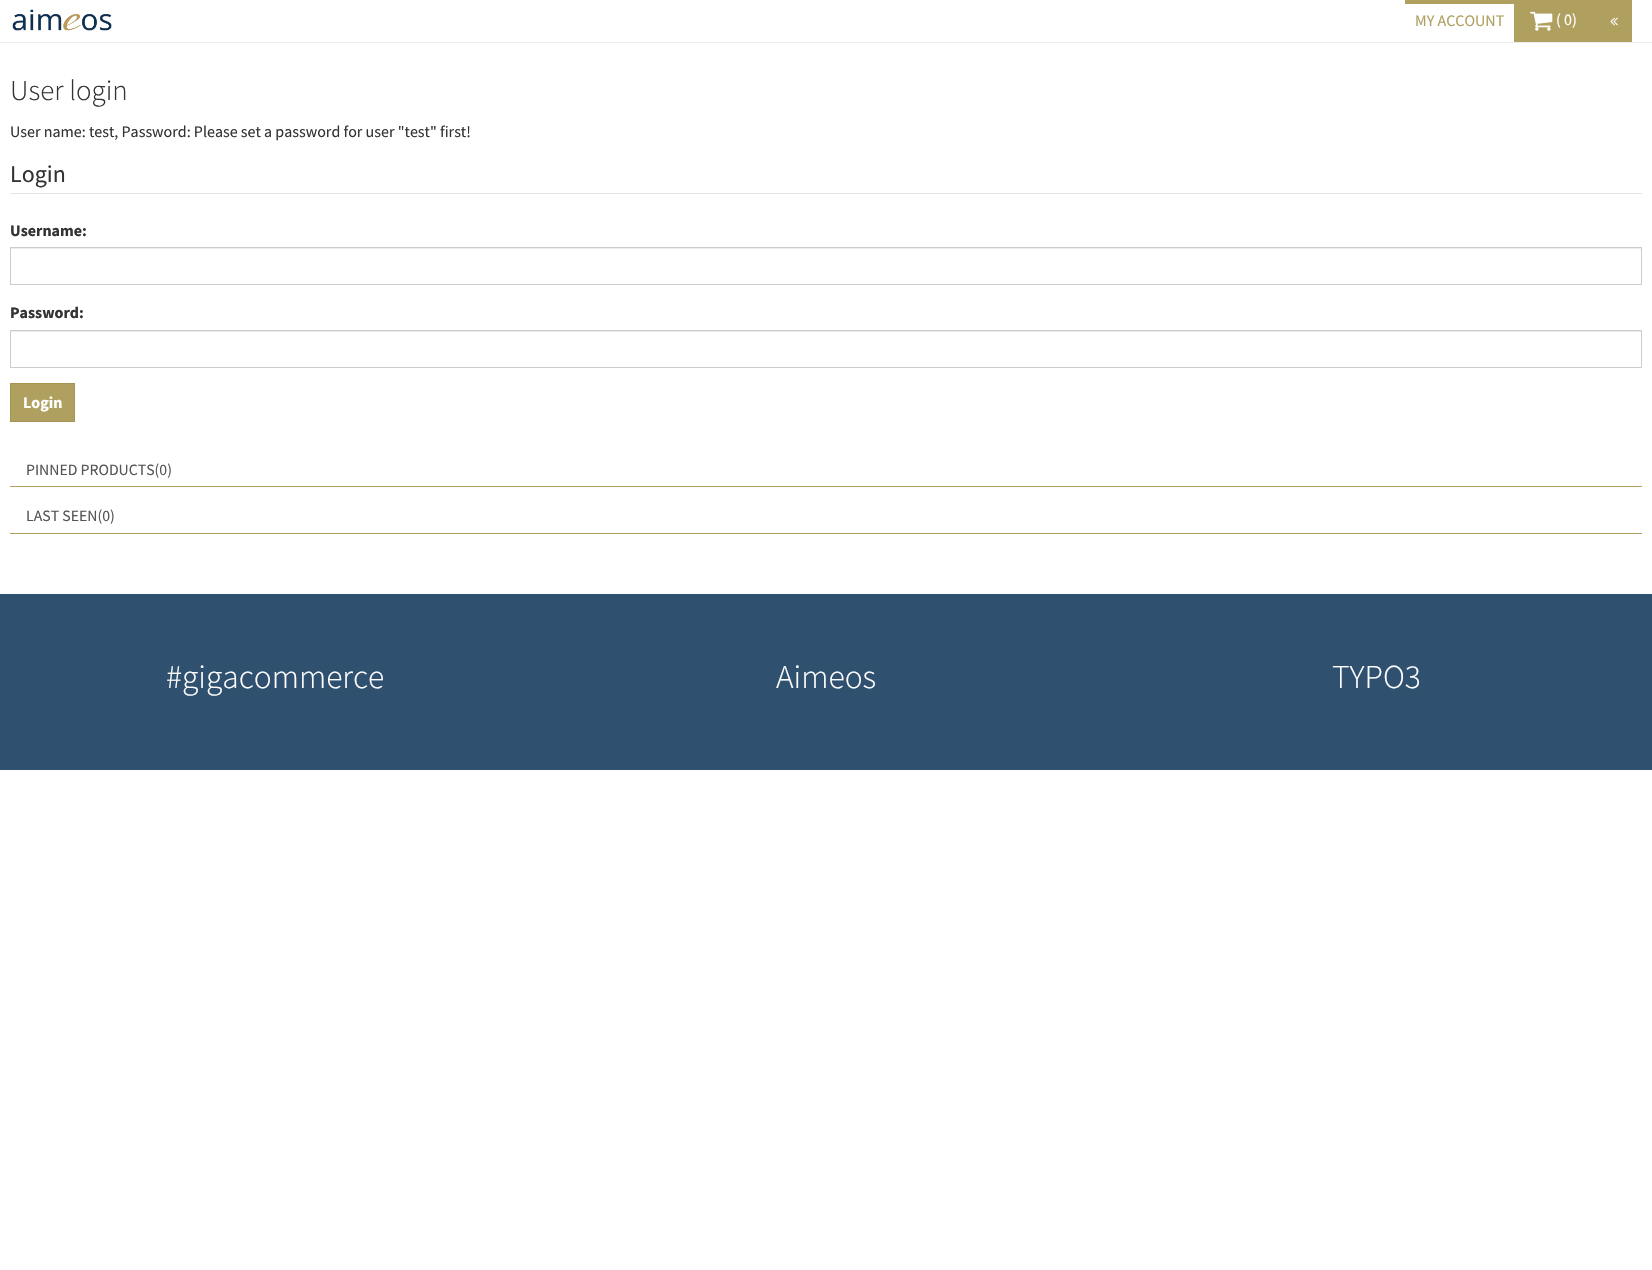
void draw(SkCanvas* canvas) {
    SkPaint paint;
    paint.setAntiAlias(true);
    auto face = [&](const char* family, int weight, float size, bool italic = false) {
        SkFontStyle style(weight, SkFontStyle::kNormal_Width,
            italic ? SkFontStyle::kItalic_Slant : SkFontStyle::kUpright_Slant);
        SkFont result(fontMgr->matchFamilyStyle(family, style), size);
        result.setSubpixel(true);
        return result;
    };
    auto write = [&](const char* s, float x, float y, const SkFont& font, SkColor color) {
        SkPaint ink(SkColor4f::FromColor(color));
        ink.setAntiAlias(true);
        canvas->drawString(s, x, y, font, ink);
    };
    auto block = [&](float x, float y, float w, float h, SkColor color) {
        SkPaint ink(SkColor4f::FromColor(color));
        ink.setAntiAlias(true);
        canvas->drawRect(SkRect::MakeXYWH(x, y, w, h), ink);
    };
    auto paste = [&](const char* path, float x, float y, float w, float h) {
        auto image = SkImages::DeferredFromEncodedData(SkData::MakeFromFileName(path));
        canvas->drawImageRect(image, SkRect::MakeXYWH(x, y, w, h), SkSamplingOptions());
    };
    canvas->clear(SK_ColorWHITE);
    block(0, 42, 1652, 1, SkColorSetRGB(238, 238, 238));
    paste("pic1.png", 12, 9, 100, 22);
    block(1405, 0, 109, 4, SkColorSetRGB(176, 160, 96));
    auto kFont1 = face("Source Sans Pro", 400, 16);
    write("MY ACCOUNT", 1415, 26, kFont1, SkColorSetRGB(176, 160, 96));
    block(1514, 0, 118, 42, SkColorSetRGB(176, 160, 96));
    paste("pic2.png", 1530, 11, 23, 20);
    write("( 0)", 1556, 25, kFont1, SK_ColorWHITE);
    paste("pic3.png", 1610, 17, 8, 9);
    auto kFont2 = face("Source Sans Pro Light", 300, 29);
    write("User login", 10, 100, kFont2, SkColorSetRGB(51, 51, 51));
    write("User name: test, Password: Please set a password for user \"test\" first!", 10, 137, kFont1, SkColorSetRGB(51, 51, 51));
    block(10, 193, 1632, 1, SkColorSetRGB(229, 229, 229));
    auto kFont3 = face("Source Sans Pro", 400, 24);
    write("Login", 10, 182, kFont3, SkColorSetRGB(51, 51, 51));
    auto kFont4 = face("Source Sans Pro", 700, 16);
    write("Username:", 10, 236, kFont4, SkColorSetRGB(51, 51, 51));
    block(11, 248, 1630, 1, SkColorSetRGB(236, 236, 236));
    paint.setStyle(SkPaint::kStroke_Style);
    paint.setStrokeWidth(1);
    paint.setColor(SkColorSetRGB(204, 204, 204));
    canvas->drawRect(SkRect::MakeXYWH(10.5f, 247.5f, 1631, 37), paint);
    write("Password:", 10, 318, kFont4, SkColorSetRGB(51, 51, 51));
    block(11, 331, 1630, 1, SkColorSetRGB(236, 236, 236));
    canvas->drawRect(SkRect::MakeXYWH(10.5f, 330.5f, 1631, 37), paint);
    paint.setStyle(SkPaint::kFill_Style);
    paint.setColor(SkColorSetRGB(176, 160, 96));
    canvas->drawRect(SkRect::MakeXYWH(10.5f, 383.5f, 64, 38), paint);
    paint.setStyle(SkPaint::kStroke_Style);
    paint.setColor(SkColorSetRGB(165, 148, 82));
    canvas->drawRect(SkRect::MakeXYWH(10.5f, 383.5f, 64, 38), paint);
    write("Login", 23, 408, kFont4, SK_ColorWHITE);
    block(10, 486, 1632, 1, SkColorSetRGB(176, 160, 96));
    auto kFont5 = face("Source Sans Pro", 400, 15.75f);
    write("PINNED PRODUCTS(0)", 26, 475, kFont5, SkColorSetRGB(85, 85, 85));
    block(10, 533, 1632, 1, SkColorSetRGB(176, 160, 96));
    write("LAST SEEN(0)", 26, 521, kFont5, SkColorSetRGB(85, 85, 85));
    block(0, 594, 1652, 176, SkColorSetRGB(48, 80, 112));
    auto kFont6 = face("Source Sans Pro Light", 300, 33.5f);
    write("#gigacommerce", 166, 688, kFont6, SK_ColorWHITE);
    write("Aimeos", 776, 688, kFont6, SK_ColorWHITE);
    write("TYPO3", 1332, 688, kFont6, SK_ColorWHITE);
}
